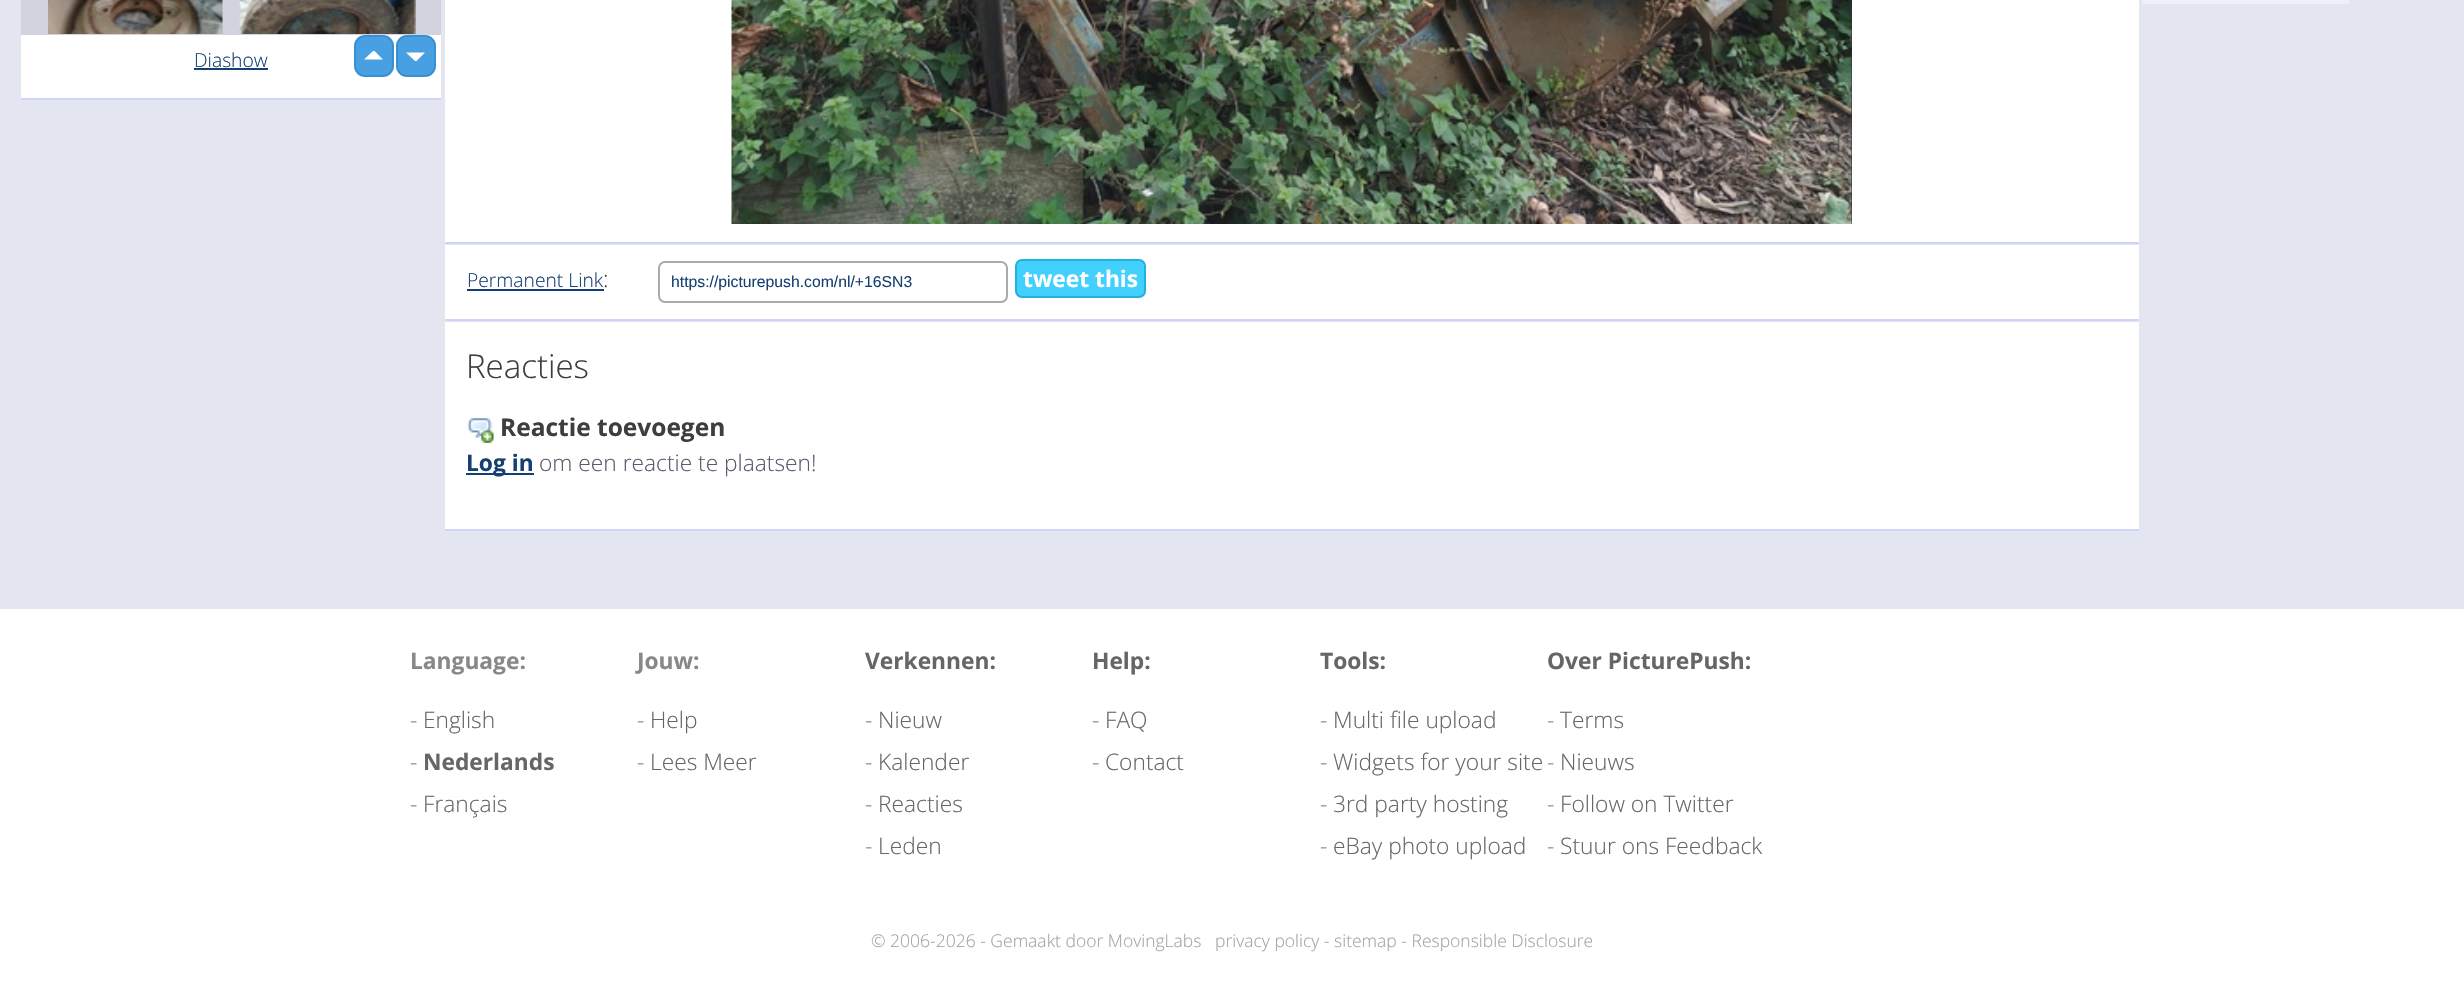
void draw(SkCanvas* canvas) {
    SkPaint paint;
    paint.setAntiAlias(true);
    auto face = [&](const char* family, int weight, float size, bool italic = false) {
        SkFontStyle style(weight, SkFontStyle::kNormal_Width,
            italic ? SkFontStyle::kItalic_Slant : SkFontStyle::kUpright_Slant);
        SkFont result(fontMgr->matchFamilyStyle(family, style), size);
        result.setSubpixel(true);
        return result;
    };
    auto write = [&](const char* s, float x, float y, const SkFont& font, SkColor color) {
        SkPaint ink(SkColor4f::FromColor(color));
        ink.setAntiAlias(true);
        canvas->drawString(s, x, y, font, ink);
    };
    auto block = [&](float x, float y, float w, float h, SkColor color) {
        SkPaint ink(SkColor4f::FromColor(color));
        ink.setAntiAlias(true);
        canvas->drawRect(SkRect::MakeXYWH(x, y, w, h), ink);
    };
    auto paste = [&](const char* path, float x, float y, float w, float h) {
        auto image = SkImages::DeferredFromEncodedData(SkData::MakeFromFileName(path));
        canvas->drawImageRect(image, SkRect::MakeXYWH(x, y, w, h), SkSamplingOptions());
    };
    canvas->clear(SkColorSetRGB(227, 230, 241));
    block(21, 0, 420, 35, SkColorSetRGB(209, 212, 222));
    block(21, 98, 420, 2, SkColorSetRGB(207, 212, 255));
    paste("pic1.png", 48, 0, 175, 34);
    paste("pic2.png", 239, 0, 177, 34);
    block(21, 35, 420, 63, SK_ColorWHITE);
    paint.setColor(SkColorSetRGB(72, 160, 227));
    canvas->drawRoundRect(SkRect::MakeXYWH(355, 36, 38, 40), 10, 10, paint);
    paint.setStyle(SkPaint::kStroke_Style);
    paint.setStrokeWidth(2);
    paint.setColor(SkColorSetRGB(56, 144, 211));
    canvas->drawRoundRect(SkRect::MakeXYWH(355, 36, 38, 40), 10, 10, paint);
    paint.setStyle(SkPaint::kFill_Style);
    paint.setColor(SkColorSetRGB(72, 160, 227));
    canvas->drawRoundRect(SkRect::MakeXYWH(397, 36, 38, 40), 10, 10, paint);
    paint.setStyle(SkPaint::kStroke_Style);
    paint.setColor(SkColorSetRGB(56, 144, 211));
    canvas->drawRoundRect(SkRect::MakeXYWH(397, 36, 38, 40), 10, 10, paint);
    paint.setStyle(SkPaint::kFill_Style);
    paint.setColor(SK_ColorWHITE);
    canvas->drawPath(SkPathBuilder().moveTo(383, 59.5f).lineTo(364, 59.5f).lineTo(373, 51).lineTo(374.5f, 51).close().moveTo(406, 52.5f).lineTo(425, 52.5f).lineTo(416.5f, 61).lineTo(415, 61).close().detach(), paint);
    auto kFont1 = face("Open Sans", 300, 19.25f);
    write("Diashow", 194, 67, kFont1, SkColorSetRGB(22, 63, 115));
    block(194, 68, 74, 2, SkColorSetRGB(22, 63, 115));
    block(445, 0, 1694, 242, SK_ColorWHITE);
    block(445, 242, 1694, 2, SkColorSetRGB(207, 212, 255));
    block(1851, 0, 1, 224, SkColorSetRGB(51, 51, 51));
    paste("pic3.png", 731, 0, 1121, 224);
    block(2142, 0, 207, 4, SkColorSetRGB(238, 240, 247));
    block(445, 245, 1694, 74, SK_ColorWHITE);
    block(445, 319, 1694, 2, SkColorSetRGB(207, 212, 255));
    write("Permanent Link", 467, 287, kFont1, SkColorSetRGB(22, 63, 115));
    block(467, 289, 137, 2, SkColorSetRGB(22, 63, 115));
    auto kFont2 = face("Open Sans", 300, 22.75f);
    write(":", 603, 287, kFont2, SkColorSetRGB(62, 62, 65));
    paint.setStyle(SkPaint::kStroke_Style);
    paint.setColor(SkColorSetRGB(170, 170, 170));
    canvas->drawRoundRect(SkRect::MakeXYWH(659, 262, 348, 40), 6, 6, paint);
    auto kFont3 = face("Liberation Sans", 400, 15.75f);
    write("https://picturepush.com/nl/+16SN3", 671, 287, kFont3, SkColorSetRGB(22, 63, 115));
    paint.setStyle(SkPaint::kFill_Style);
    paint.setColor(SkColorSetRGB(66, 208, 255));
    canvas->drawRoundRect(SkRect::MakeXYWH(1016, 260, 129, 37), 6, 6, paint);
    paint.setStyle(SkPaint::kStroke_Style);
    paint.setColor(SkColorSetRGB(34, 176, 223));
    canvas->drawRoundRect(SkRect::MakeXYWH(1016, 260, 129, 37), 6, 6, paint);
    auto kFont4 = face("Open Sans", 700, 22.75f);
    write("tweet this", 1023, 287, kFont4, SK_ColorWHITE);
    block(445, 322, 1694, 207, SK_ColorWHITE);
    block(445, 529, 1694, 2, SkColorSetRGB(207, 212, 255));
    auto kFont5 = face("Open Sans", 300, 33);
    write("Reacties", 466, 378, kFont5, SkColorSetRGB(62, 62, 65));
    paste("pic4.png", 467, 417, 27, 26);
    auto kFont6 = face("Open Sans", 700, 24.5f);
    write("Reactie toevoegen", 500, 436, kFont6, SkColorSetRGB(62, 62, 65));
    block(466, 473, 68, 2, SkColorSetRGB(22, 63, 115));
    write("Log in", 466, 471, kFont4, SkColorSetRGB(22, 63, 115));
    write("om een reactie te plaatsen!", 539, 471, kFont2, SkColorSetRGB(90, 92, 108));
    block(0, 609, 2464, 386, SK_ColorWHITE);
    write("Language:", 410, 669, kFont4, SkColorSetRGB(136, 136, 136));
    write("-", 410, 728, kFont2, SkColorSetRGB(136, 136, 136));
    write("English", 423, 728, kFont2, SkColorSetRGB(102, 102, 102));
    write("-", 410, 770, kFont2, SkColorSetRGB(136, 136, 136));
    write("Nederlands", 423, 770, kFont4, SkColorSetRGB(102, 102, 102));
    write("-", 410, 812, kFont2, SkColorSetRGB(136, 136, 136));
    write("Français", 423, 812, kFont2, SkColorSetRGB(102, 102, 102));
    write("Jouw:", 637, 669, kFont4, SkColorSetRGB(136, 136, 136));
    write("-", 637, 728, kFont2, SkColorSetRGB(136, 136, 136));
    write("Help", 650, 728, kFont2, SkColorSetRGB(102, 102, 102));
    write("-", 637, 770, kFont2, SkColorSetRGB(136, 136, 136));
    write("Lees Meer", 650, 770, kFont2, SkColorSetRGB(102, 102, 102));
    write("Verkennen:", 865, 669, kFont4, SkColorSetRGB(102, 102, 102));
    write("-", 865, 728, kFont2, SkColorSetRGB(136, 136, 136));
    write("Nieuw", 878, 728, kFont2, SkColorSetRGB(102, 102, 102));
    write("-", 865, 770, kFont2, SkColorSetRGB(136, 136, 136));
    write("Kalender", 878, 770, kFont2, SkColorSetRGB(102, 102, 102));
    write("-", 865, 812, kFont2, SkColorSetRGB(136, 136, 136));
    write("Reacties", 878, 812, kFont2, SkColorSetRGB(102, 102, 102));
    write("-", 865, 854, kFont2, SkColorSetRGB(136, 136, 136));
    write("Leden", 878, 854, kFont2, SkColorSetRGB(102, 102, 102));
    write("Help:", 1092, 669, kFont4, SkColorSetRGB(102, 102, 102));
    write("-", 1092, 728, kFont2, SkColorSetRGB(136, 136, 136));
    write("FAQ", 1105, 728, kFont2, SkColorSetRGB(102, 102, 102));
    write("-", 1092, 770, kFont2, SkColorSetRGB(136, 136, 136));
    write("Contact", 1105, 770, kFont2, SkColorSetRGB(102, 102, 102));
    write("Tools:", 1320, 669, kFont4, SkColorSetRGB(102, 102, 102));
    write("-", 1320, 728, kFont2, SkColorSetRGB(136, 136, 136));
    write("Multi file upload", 1333, 728, kFont2, SkColorSetRGB(102, 102, 102));
    write("-", 1320, 770, kFont2, SkColorSetRGB(136, 136, 136));
    write("Widgets for your site", 1333, 770, kFont2, SkColorSetRGB(102, 102, 102));
    write("-", 1320, 812, kFont2, SkColorSetRGB(136, 136, 136));
    write("3rd party hosting", 1333, 812, kFont2, SkColorSetRGB(102, 102, 102));
    write("-", 1320, 854, kFont2, SkColorSetRGB(136, 136, 136));
    write("eBay photo upload", 1333, 854, kFont2, SkColorSetRGB(102, 102, 102));
    write("Over PicturePush:", 1547, 669, kFont4, SkColorSetRGB(102, 102, 102));
    write("-", 1547, 728, kFont2, SkColorSetRGB(136, 136, 136));
    write("Terms", 1560, 728, kFont2, SkColorSetRGB(102, 102, 102));
    write("-", 1547, 770, kFont2, SkColorSetRGB(136, 136, 136));
    write("Nieuws", 1560, 770, kFont2, SkColorSetRGB(102, 102, 102));
    write("-", 1547, 812, kFont2, SkColorSetRGB(136, 136, 136));
    write("Follow on Twitter", 1560, 812, kFont2, SkColorSetRGB(102, 102, 102));
    write("-", 1547, 854, kFont2, SkColorSetRGB(136, 136, 136));
    write("Stuur ons Feedback", 1560, 854, kFont2, SkColorSetRGB(102, 102, 102));
    auto kFont7 = face("Open Sans", 300, 17.5f);
    write("© 2006-2026 - Gemaakt door MovingLabs", 871, 947, kFont7, SkColorSetRGB(163, 163, 163));
    write("privacy policy - sitemap - Responsible Disclosure", 1215, 947, kFont7, SkColorSetRGB(163, 163, 163));
}
